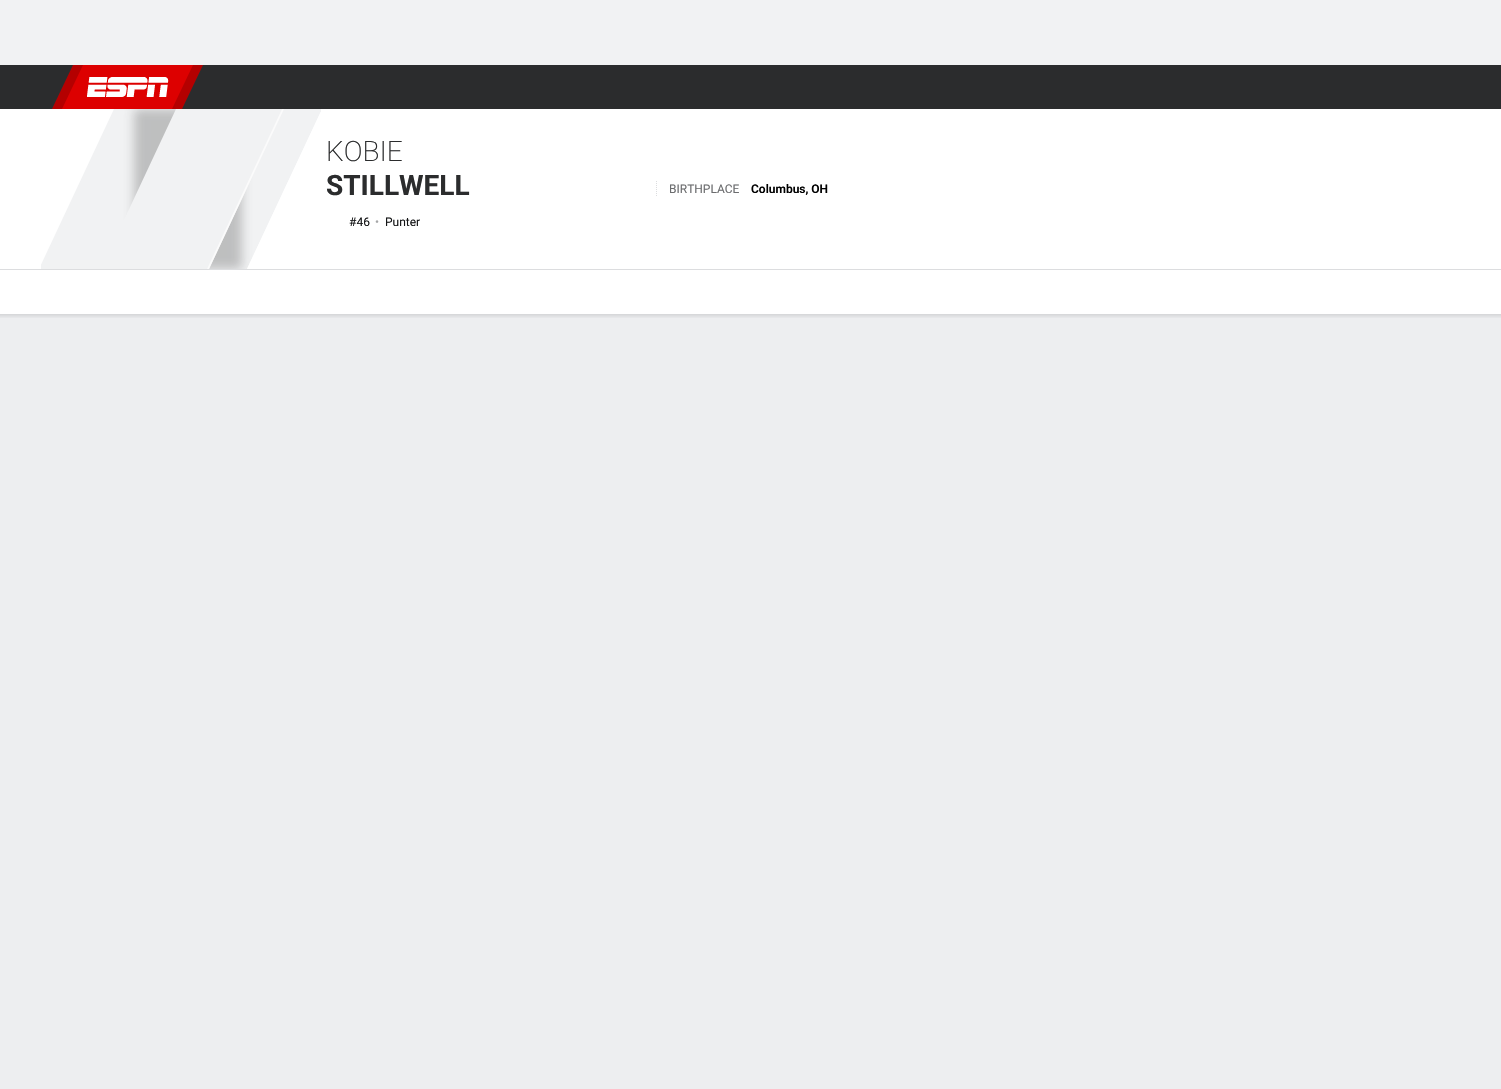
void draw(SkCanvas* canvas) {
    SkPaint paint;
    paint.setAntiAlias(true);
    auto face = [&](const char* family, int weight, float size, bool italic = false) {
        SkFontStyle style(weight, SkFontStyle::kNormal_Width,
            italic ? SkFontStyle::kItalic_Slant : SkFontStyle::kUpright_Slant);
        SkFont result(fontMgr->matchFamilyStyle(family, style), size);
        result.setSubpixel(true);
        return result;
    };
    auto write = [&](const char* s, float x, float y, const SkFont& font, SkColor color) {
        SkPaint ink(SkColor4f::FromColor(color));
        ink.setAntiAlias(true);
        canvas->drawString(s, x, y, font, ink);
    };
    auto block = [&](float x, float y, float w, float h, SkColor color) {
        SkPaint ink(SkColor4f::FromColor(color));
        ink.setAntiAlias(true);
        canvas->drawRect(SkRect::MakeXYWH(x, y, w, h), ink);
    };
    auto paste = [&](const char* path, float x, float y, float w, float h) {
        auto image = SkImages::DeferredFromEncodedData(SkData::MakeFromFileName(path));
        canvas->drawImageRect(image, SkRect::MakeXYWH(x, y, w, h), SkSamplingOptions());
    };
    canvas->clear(SkColorSetRGB(237, 238, 240));
    block(0, 0, 1501, 65, SkColorSetRGB(241, 242, 243));
    block(0, 109, 1501, 160, SK_ColorWHITE);
    block(0, 269, 1501, 1, SkColorSetRGB(220, 221, 223));
    block(41, 109, 280, 160, SkColorSetRGB(241, 242, 243));
    block(0, 270, 1501, 44, SK_ColorWHITE);
    canvas->save();
    canvas->clipRect(SkRect::MakeXYWH(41, 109, 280, 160));
    canvas->clipPath(SkPathBuilder(SkPathFillType::kEvenOdd).moveTo(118, 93).lineTo(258, 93).lineTo(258, 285).lineTo(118, 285).close().moveTo(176, 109).lineTo(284, 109).lineTo(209, 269).lineTo(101, 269).close().detach(), true);
    paint.setColor(SkColorSetARGB(77, 72, 73, 73));
    paint.setMaskFilter(SkMaskFilter::MakeBlur(kNormal_SkBlurStyle, 5));
    canvas->drawRect(SkRect::MakeXYWH(134, 109, 108, 160), paint);
    paint.setMaskFilter(nullptr);
    canvas->restore();
    block(0, 65, 1501, 44, SkColorSetRGB(43, 44, 45));
    paint.setColor(SkColorSetRGB(180, 0, 0));
    canvas->drawPath(SkPathBuilder().moveTo(73, 65).lineTo(203, 65).lineTo(182, 109).lineTo(52, 109).close().detach(), paint);
    paint.setColor(SkColorSetRGB(221, 0, 0));
    canvas->drawPath(SkPathBuilder().moveTo(83, 65).lineTo(193, 65).lineTo(172, 109).lineTo(62, 109).close().detach(), paint);
    paste("pic1.png", 87, 77, 82, 20);
    canvas->save();
    canvas->clipRect(SkRect::MakeXYWH(41, 109, 280, 160));
    paint.setColor(SK_ColorWHITE);
    canvas->drawPath(SkPathBuilder().moveTo(38, 109).lineTo(114, 109).lineTo(39, 269).lineTo(-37, 269).close().detach(), paint);
    canvas->restore();
    paint.setColor(SkColorSetRGB(251, 251, 251));
    canvas->drawPath(SkPathBuilder().moveTo(282, 109).lineTo(284, 109).lineTo(209, 269).lineTo(207, 269).close().detach(), paint);
    canvas->save();
    canvas->clipRect(SkRect::MakeXYWH(41, 109, 280, 160));
    paint.setColor(SK_ColorWHITE);
    canvas->drawPath(SkPathBuilder().moveTo(322, 109).lineTo(398, 109).lineTo(323, 269).lineTo(247, 269).close().detach(), paint);
    paint.setColor(SkColorSetARGB(230, 255, 255, 255));
    canvas->drawPath(SkPathBuilder().moveTo(322, 109).lineTo(398, 109).lineTo(323, 269).lineTo(247, 269).close().detach(), paint);
    canvas->restore();
    auto kFont1 = face("Roboto", 200, 28);
    write("KOBIE", 326, 161, kFont1, SkColorSetRGB(43, 44, 45));
    auto kFont2 = face("Roboto", 700, 28);
    write("STILLWELL", 326, 195, kFont2, SkColorSetRGB(43, 44, 45));
    auto kFont3 = face("Roboto", 400, 12);
    write("#46", 349, 226, kFont3, SkColorSetRGB(21, 22, 23));
    write("•", 375, 226, kFont3, SkColorSetRGB(165, 166, 167));
    write("Punter", 385, 226, kFont3, SkColorSetRGB(21, 22, 23));
    paint.setStyle(SkPaint::kStroke_Style);
    paint.setStrokeWidth(1);
    paint.setColor(SkColorSetRGB(220, 221, 223));
    paint.setPathEffect(SkDashPathEffect::Make({{1, 1}}, 0));
    canvas->drawPath(SkPathBuilder().moveTo(656.5f, 181).lineTo(656.5f, 197).detach(), paint);
    paint.setPathEffect(nullptr);
    write("BIRTHPLACE", 669, 193, kFont3, SkColorSetRGB(108, 109, 111));
    auto kFont4 = face("Roboto", 600, 12);
    write("Columbus, OH", 751, 193, kFont4, SK_ColorBLACK);
    paint.setStyle(SkPaint::kFill_Style);
    {
        const SkColor colors[] = {SkColorSetRGB(213, 214, 216), SkColorSetRGB(237, 238, 240)};
        const float stops[] = {0, 1};
        const SkPoint ends[] = {{751, 314}, {751, 319}};
        paint.setShader(SkGradientShader::MakeLinear(ends, colors, stops, 2, SkTileMode::kClamp));
        paint.setAlpha(255);
    }
    canvas->drawRect(SkRect::MakeXYWH(0, 314, 1501, 4), paint);
}
